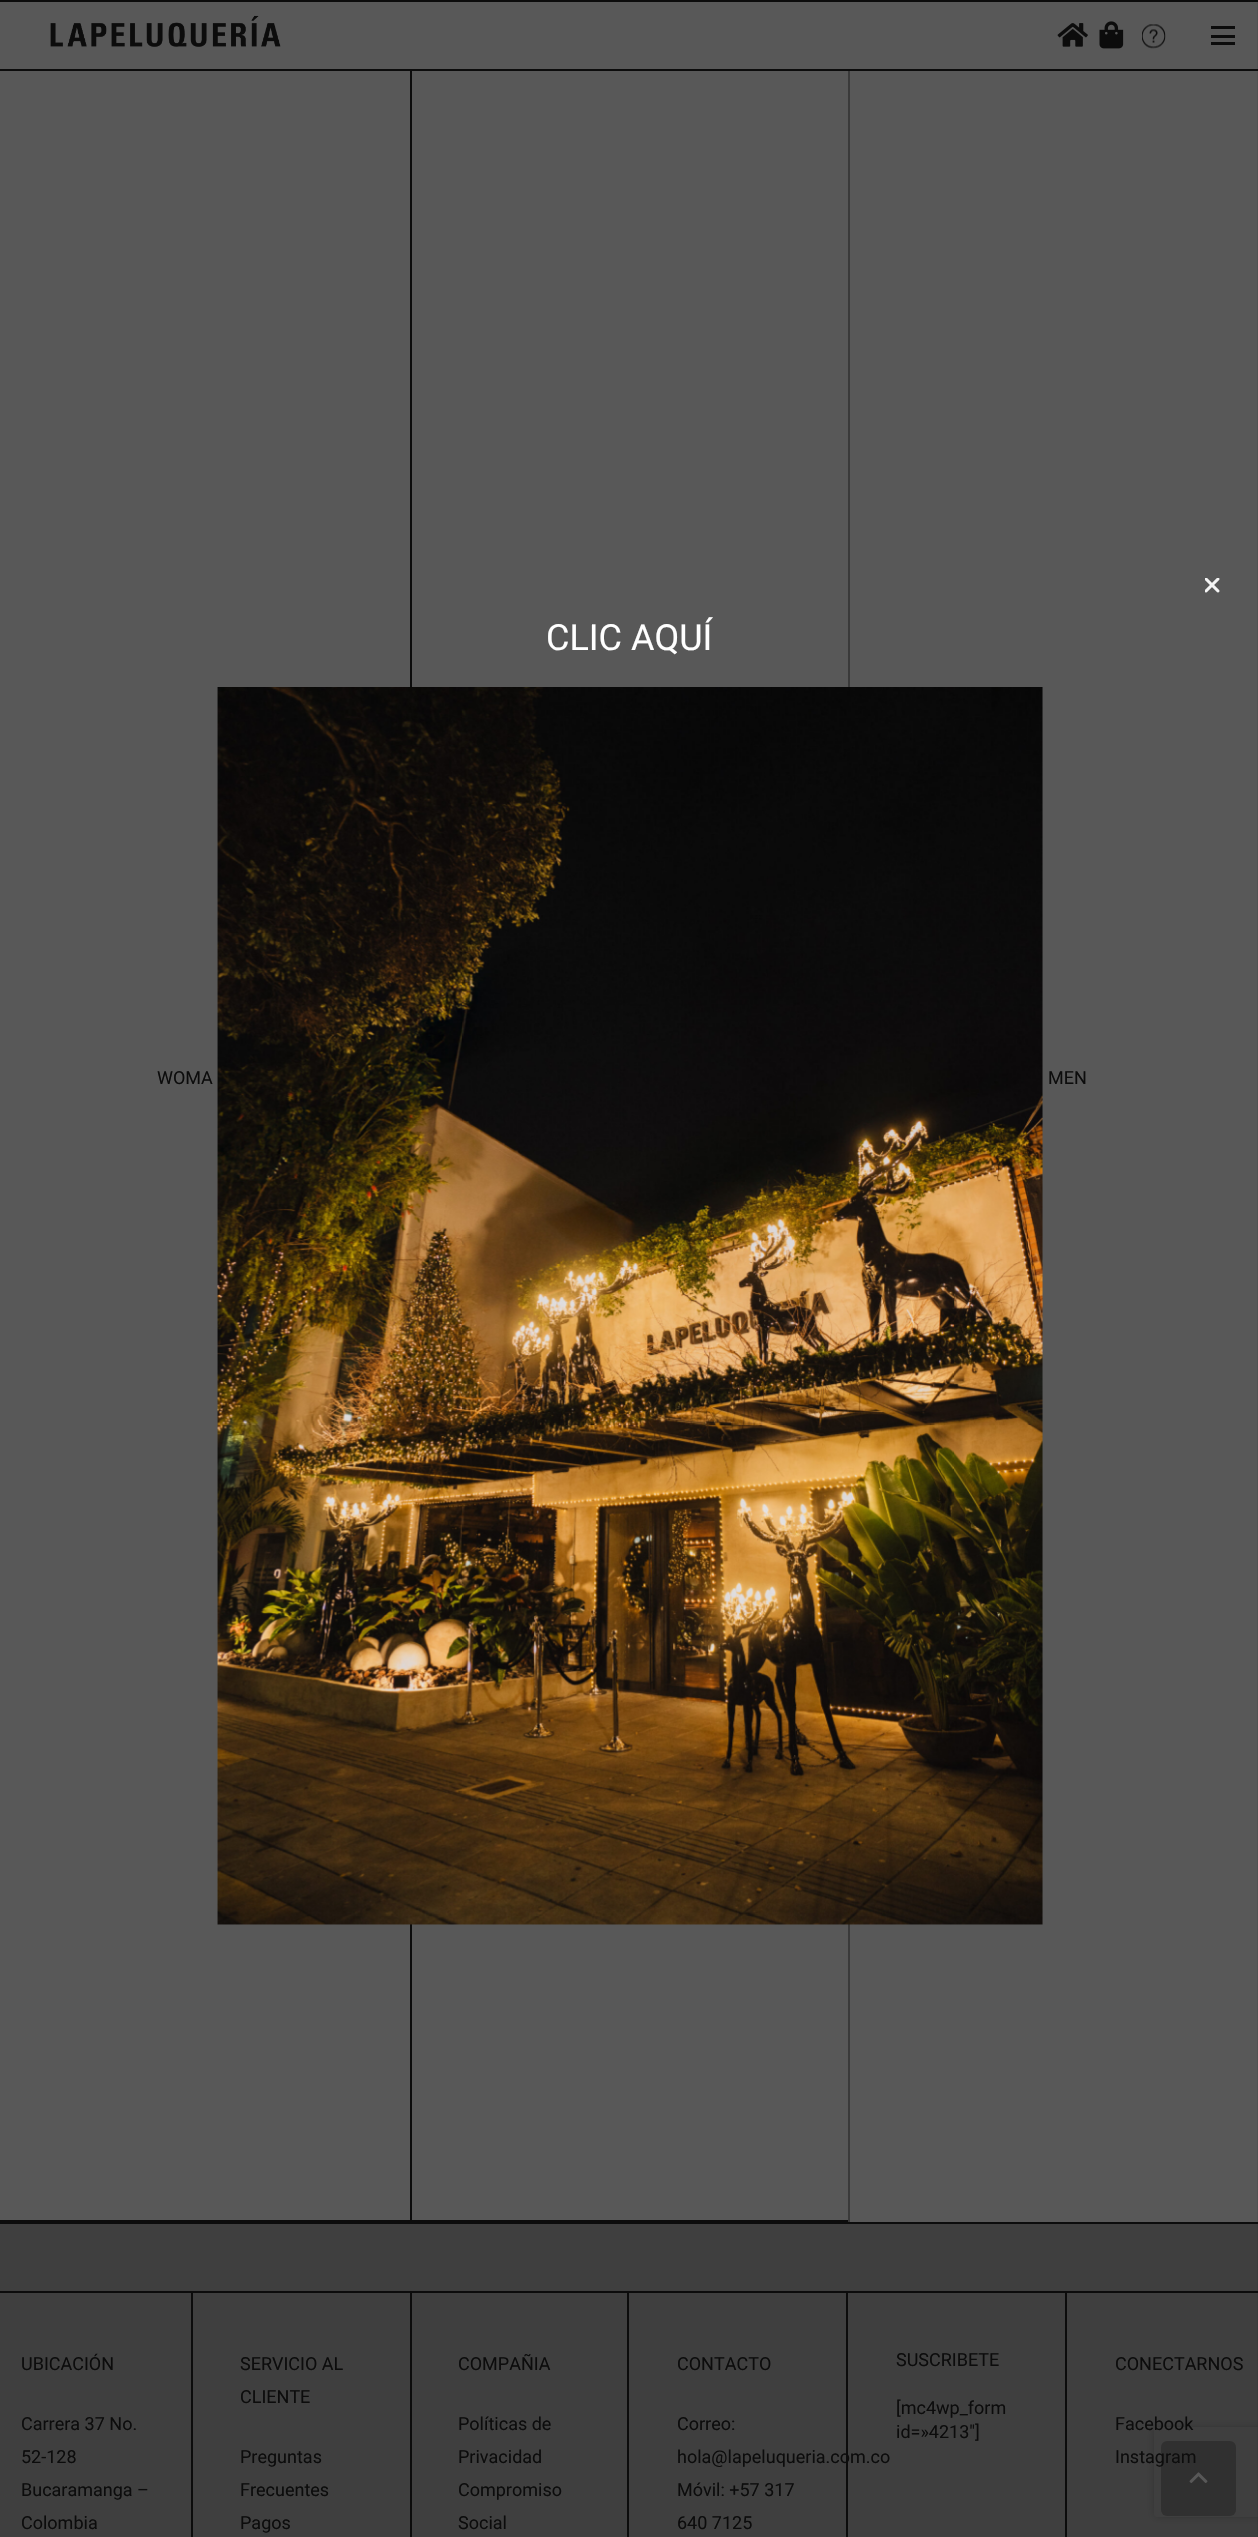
void draw(SkCanvas* canvas) {
    SkPaint paint;
    paint.setAntiAlias(true);
    auto face = [&](const char* family, int weight, float size, bool italic = false) {
        SkFontStyle style(weight, SkFontStyle::kNormal_Width,
            italic ? SkFontStyle::kItalic_Slant : SkFontStyle::kUpright_Slant);
        SkFont result(fontMgr->matchFamilyStyle(family, style), size);
        result.setSubpixel(true);
        return result;
    };
    auto write = [&](const char* s, float x, float y, const SkFont& font, SkColor color) {
        SkPaint ink(SkColor4f::FromColor(color));
        ink.setAntiAlias(true);
        canvas->drawString(s, x, y, font, ink);
    };
    auto block = [&](float x, float y, float w, float h, SkColor color) {
        SkPaint ink(SkColor4f::FromColor(color));
        ink.setAntiAlias(true);
        canvas->drawRect(SkRect::MakeXYWH(x, y, w, h), ink);
    };
    auto card = [&](float x, float y, float w, float h, float radius, SkColor color) {
        SkPaint ink(SkColor4f::FromColor(color));
        ink.setAntiAlias(true);
        canvas->drawRoundRect(SkRect::MakeXYWH(x, y, w, h), radius, radius, ink);
    };
    auto paste = [&](const char* path, float x, float y, float w, float h) {
        auto image = SkImages::DeferredFromEncodedData(SkData::MakeFromFileName(path));
        canvas->drawImageRect(image, SkRect::MakeXYWH(x, y, w, h), SkSamplingOptions());
    };
    canvas->clear(SkColorSetRGB(88, 88, 88));
    paste("pic1.png", 1205, 578, 15, 15);
    auto kFont1 = face("Roboto", 400, 36);
    write("CLIC AQUÍ", 546, 650, kFont1, SK_ColorWHITE);
    block(410, 71, 2, 2151, SkColorSetRGB(12, 12, 12));
    block(848, 71, 2, 2151, SkColorSetRGB(58, 58, 58));
    paste("pic2.png", 217, 687, 826, 1238);
    block(0, 0, 1258, 2, SkColorSetRGB(12, 12, 12));
    block(0, 69, 1258, 2, SkColorSetRGB(12, 12, 12));
    paste("pic3.png", 50, 15, 231, 32);
    paste("pic4.png", 1057, 23, 31, 24);
    paste("pic5.png", 1099, 21, 25, 28);
    paste("pic6.png", 1142, 24, 24, 25);
    block(1211, 35, 24, 3, SkColorSetRGB(12, 12, 12));
    block(1211, 26, 24, 3, SkColorSetRGB(12, 12, 12));
    block(1211, 42, 24, 3, SkColorSetRGB(12, 12, 12));
    block(0, 2224, 1258, 313, SkColorSetRGB(63, 63, 63));
    block(0, 2222, 1258, 2, SkColorSetRGB(12, 12, 12));
    block(0, 2291, 192, 2, SkColorSetRGB(12, 12, 12));
    block(191, 2291, 2, 246, SkColorSetRGB(12, 12, 12));
    block(192, 2291, 219, 2, SkColorSetRGB(12, 12, 12));
    block(410, 2291, 2, 246, SkColorSetRGB(12, 12, 12));
    block(411, 2291, 847, 2, SkColorSetRGB(12, 12, 12));
    canvas->save();
    canvas->clipPath(SkPathBuilder(SkPathFillType::kEvenOdd).moveTo(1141, 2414).lineTo(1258, 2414).lineTo(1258, 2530).lineTo(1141, 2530).close().moveTo(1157, 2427).lineTo(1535, 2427).cubicTo(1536.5f, 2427, 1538, 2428.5f, 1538, 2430).lineTo(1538, 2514).cubicTo(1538, 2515.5f, 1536.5f, 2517, 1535, 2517).lineTo(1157, 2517).cubicTo(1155.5f, 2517, 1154, 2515.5f, 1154, 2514).lineTo(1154, 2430).cubicTo(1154, 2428.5f, 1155.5f, 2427, 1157, 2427).close().detach(), true);
    paint.setColor(SkColorSetRGB(50, 50, 50));
    paint.setMaskFilter(SkMaskFilter::MakeBlur(kNormal_SkBlurStyle, 4));
    canvas->drawRoundRect(SkRect::MakeXYWH(1154, 2427, 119, 90), 3, 3, paint);
    paint.setMaskFilter(nullptr);
    canvas->restore();
    block(1257, 0, 1, 2537, SkColorSetARGB(20, 12, 12, 12));
    block(0, 2220, 848, 2, SkColorSetRGB(12, 12, 12));
    auto kFont2 = face("Roboto", 400, 18);
    write("WOMA", 157, 1084, kFont2, SkColorSetRGB(12, 12, 12));
    write("MEN", 1048, 1084, kFont2, SkColorSetRGB(12, 12, 12));
    write("UBICACIÓN", 21, 2370, kFont2, SkColorSetRGB(12, 12, 12));
    write("Carrera 37 No.", 21, 2430, kFont2, SkColorSetRGB(12, 12, 12));
    write("52-128", 21, 2463, kFont2, SkColorSetRGB(12, 12, 12));
    write("Bucaramanga –", 21, 2496, kFont2, SkColorSetRGB(12, 12, 12));
    write("Colombia", 21, 2529, kFont2, SkColorSetRGB(12, 12, 12));
    write("SERVICIO AL", 240, 2370, kFont2, SkColorSetRGB(12, 12, 12));
    write("CLIENTE", 240, 2403, kFont2, SkColorSetRGB(12, 12, 12));
    write("Preguntas", 240, 2463, kFont2, SkColorSetRGB(12, 12, 12));
    write("Frecuentes", 240, 2496, kFont2, SkColorSetRGB(12, 12, 12));
    write("Pagos", 240, 2529, kFont2, SkColorSetRGB(12, 12, 12));
    block(627, 2291, 2, 246, SkColorSetRGB(12, 12, 12));
    write("COMPAÑIA", 458, 2370, kFont2, SkColorSetRGB(12, 12, 12));
    write("Políticas de", 458, 2430, kFont2, SkColorSetRGB(12, 12, 12));
    write("Privacidad", 458, 2463, kFont2, SkColorSetRGB(12, 12, 12));
    write("Compromiso", 458, 2496, kFont2, SkColorSetRGB(12, 12, 12));
    write("Social", 458, 2529, kFont2, SkColorSetRGB(12, 12, 12));
    block(846, 2291, 2, 246, SkColorSetRGB(12, 12, 12));
    write("CONTACTO", 677, 2370, kFont2, SkColorSetRGB(12, 12, 12));
    write("Correo:", 677, 2430, kFont2, SkColorSetRGB(12, 12, 12));
    write("hola@lapeluqueria.com.co", 677, 2463, kFont2, SkColorSetRGB(12, 12, 12));
    write("Móvil: +57 317", 677, 2496, kFont2, SkColorSetRGB(12, 12, 12));
    write("640 7125", 677, 2529, kFont2, SkColorSetRGB(12, 12, 12));
    block(1065, 2291, 2, 246, SkColorSetRGB(12, 12, 12));
    write("SUSCRIBETE", 896, 2366, kFont2, SkColorSetRGB(12, 12, 12));
    write("[mc4wp_form", 896, 2414, kFont2, SkColorSetRGB(12, 12, 12));
    write("id=»4213″]", 896, 2438, kFont2, SkColorSetRGB(12, 12, 12));
    write("CONECTARNOS", 1115, 2370, kFont2, SkColorSetRGB(12, 12, 12));
    write("Facebook", 1115, 2430, kFont2, SkColorSetRGB(12, 12, 12));
    write("Instagram", 1115, 2463, kFont2, SkColorSetRGB(12, 12, 12));
    card(1161, 2441, 75, 75, 6, SkColorSetARGB(77, 12, 12, 12));
    paste("pic7.png", 1189, 2472, 19, 11);
}
